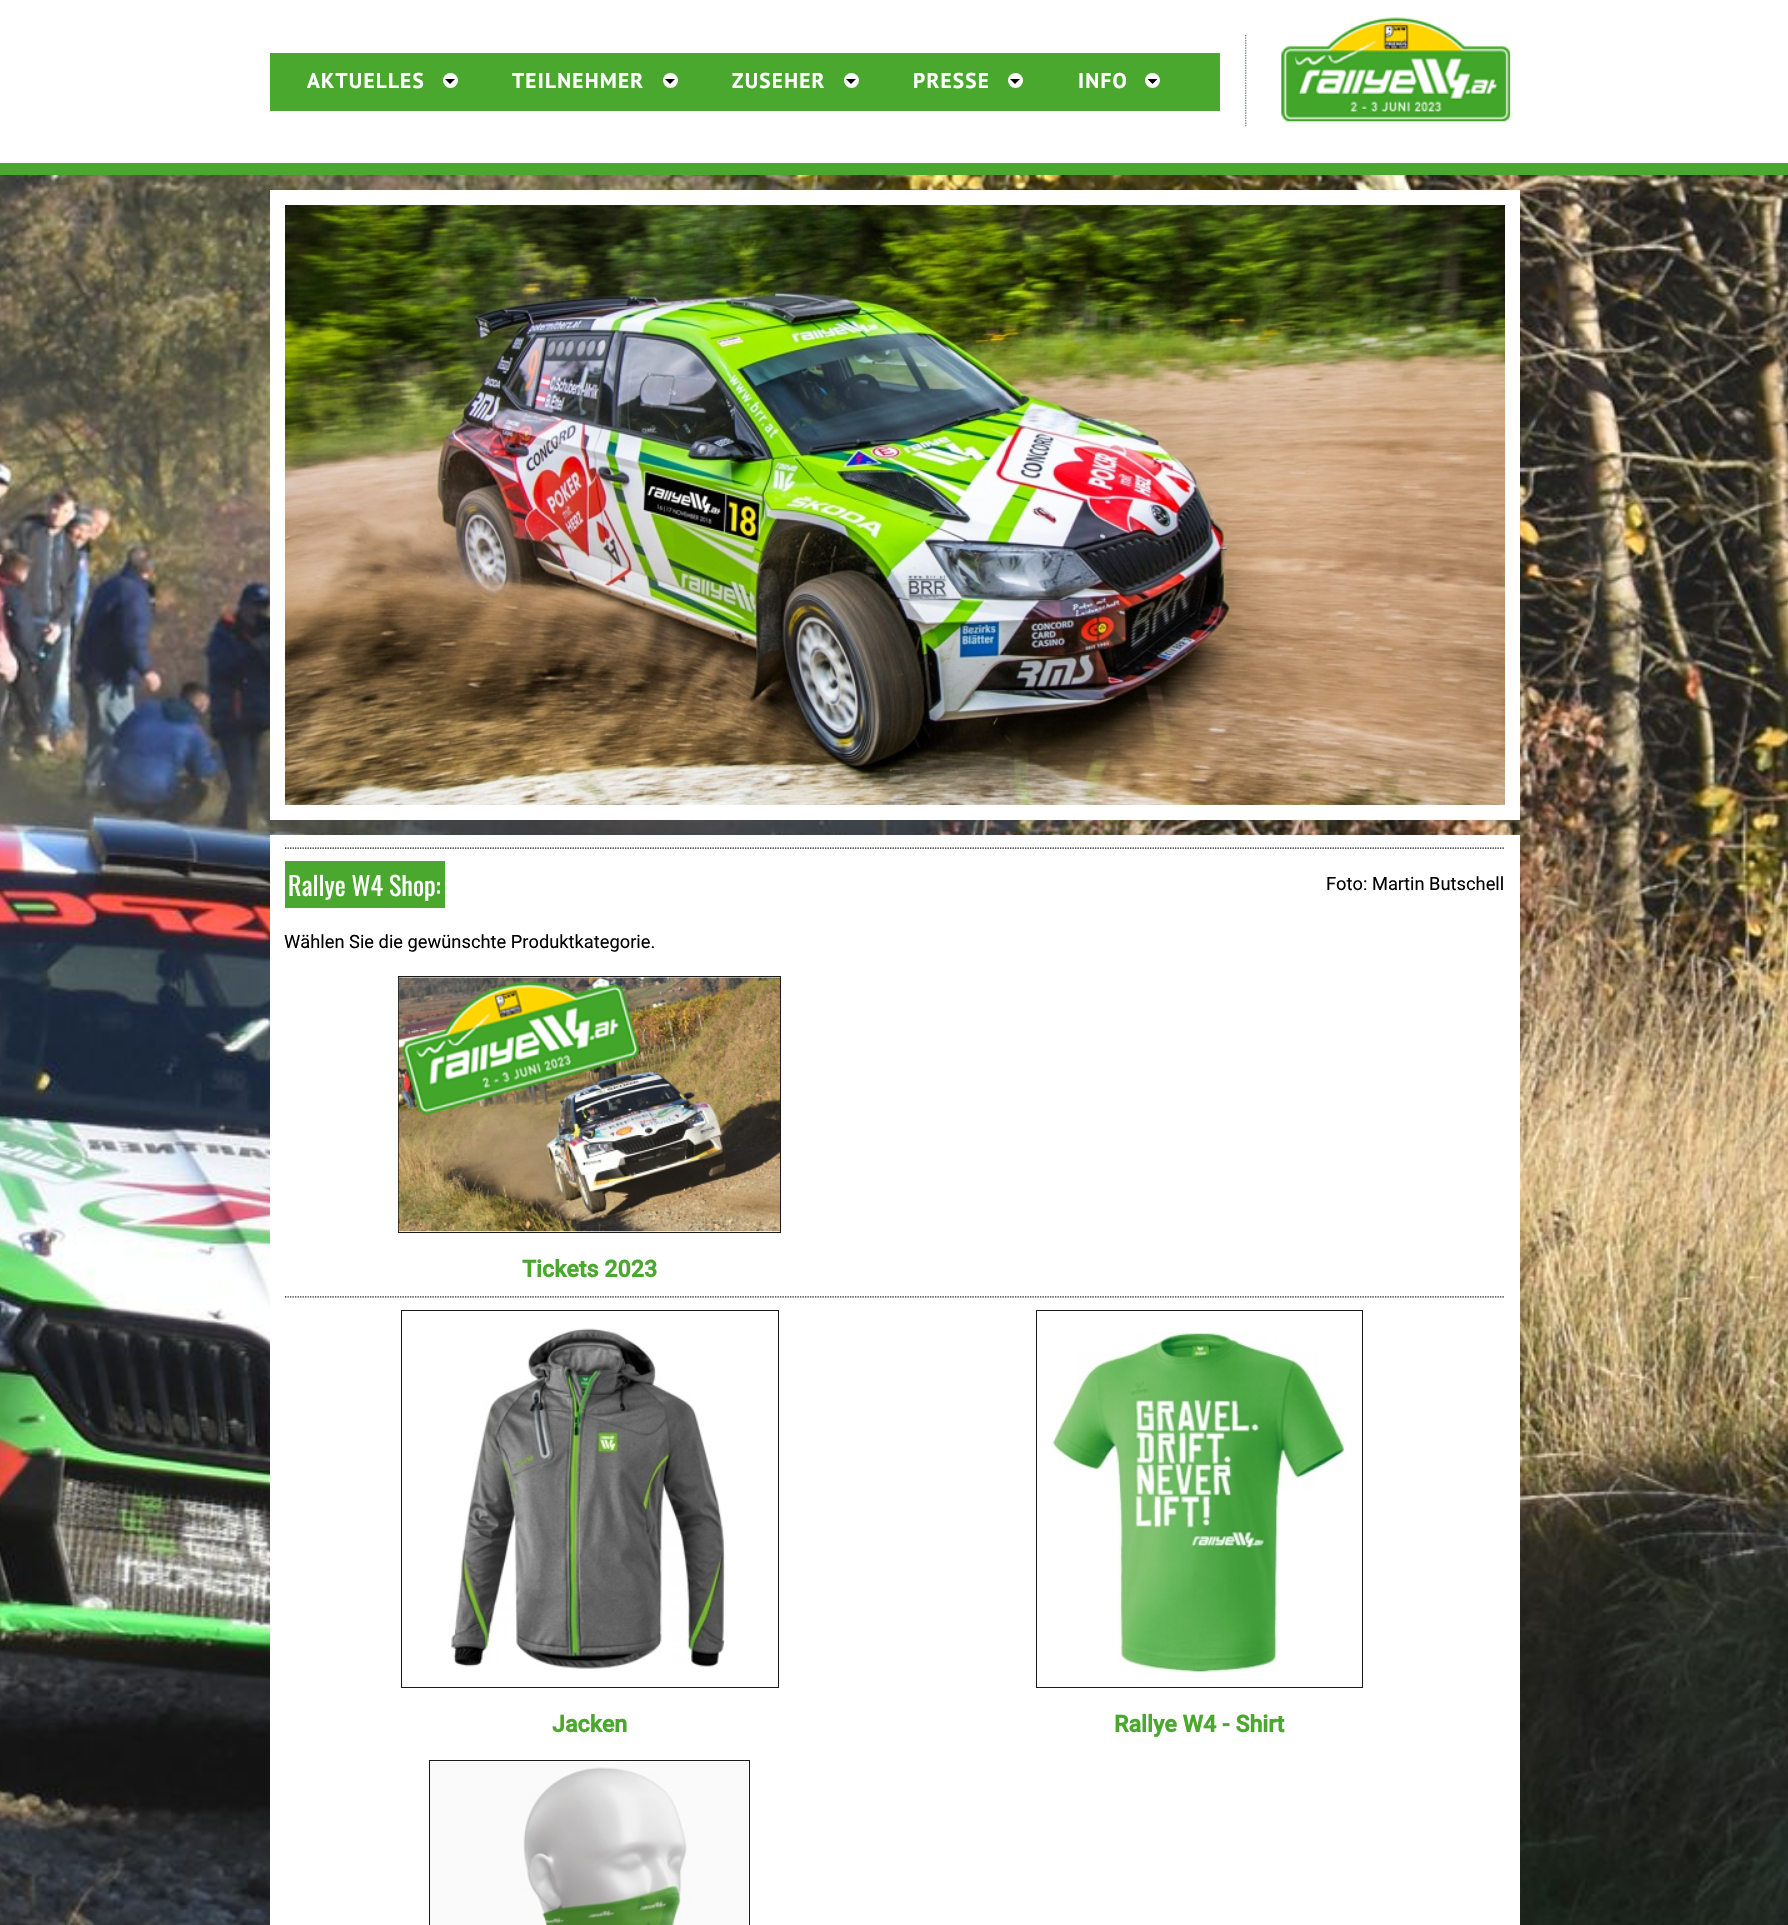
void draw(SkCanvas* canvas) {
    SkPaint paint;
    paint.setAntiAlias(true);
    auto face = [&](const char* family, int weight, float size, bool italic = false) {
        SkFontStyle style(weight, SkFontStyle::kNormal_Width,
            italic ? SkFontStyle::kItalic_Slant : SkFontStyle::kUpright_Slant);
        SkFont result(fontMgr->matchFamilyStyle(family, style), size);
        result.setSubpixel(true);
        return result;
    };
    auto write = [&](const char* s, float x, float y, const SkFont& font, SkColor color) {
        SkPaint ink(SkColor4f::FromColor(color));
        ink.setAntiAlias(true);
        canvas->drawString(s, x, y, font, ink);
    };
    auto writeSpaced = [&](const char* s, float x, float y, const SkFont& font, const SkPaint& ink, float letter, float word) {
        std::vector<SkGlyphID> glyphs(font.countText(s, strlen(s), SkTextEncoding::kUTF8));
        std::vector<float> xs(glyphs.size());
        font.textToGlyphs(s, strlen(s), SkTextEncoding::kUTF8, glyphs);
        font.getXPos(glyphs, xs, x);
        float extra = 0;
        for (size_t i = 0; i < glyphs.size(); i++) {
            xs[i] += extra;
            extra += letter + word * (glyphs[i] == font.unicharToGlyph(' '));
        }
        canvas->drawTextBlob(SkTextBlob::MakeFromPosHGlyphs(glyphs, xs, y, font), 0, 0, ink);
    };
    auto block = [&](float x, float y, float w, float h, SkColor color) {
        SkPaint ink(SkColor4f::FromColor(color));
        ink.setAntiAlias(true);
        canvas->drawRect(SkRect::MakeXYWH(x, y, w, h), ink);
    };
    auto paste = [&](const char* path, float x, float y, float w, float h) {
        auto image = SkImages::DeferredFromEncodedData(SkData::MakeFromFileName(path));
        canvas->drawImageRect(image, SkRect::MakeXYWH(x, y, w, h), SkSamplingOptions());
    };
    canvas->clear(SK_ColorWHITE);
    paste("pic1.png", 0, 175, 1788, 1750);
    block(270, 53, 950, 58, SkColorSetRGB(75, 168, 46));
    auto kFont1 = face("PT Sans", 700, 21.25f);
    paint.setColor(SK_ColorWHITE);
    writeSpaced("AKTUELLES", 307, 88, kFont1, paint, 1.25f, 0);
    canvas->drawCircle(450.5f, 80.5f, 7.5f, paint);
    paint.setColor(SK_ColorBLACK);
    canvas->drawPath(SkPathBuilder().moveTo(445, 79).lineTo(455, 79).lineTo(450, 84).close().detach(), paint);
    paint.setColor(SK_ColorWHITE);
    writeSpaced("TEILNEHMER", 512, 88, kFont1, paint, 1.25f, 0);
    canvas->drawCircle(670.5f, 80.5f, 7.5f, paint);
    paint.setColor(SK_ColorBLACK);
    canvas->drawPath(SkPathBuilder().moveTo(665, 79).lineTo(675, 79).lineTo(670, 84).close().detach(), paint);
    paint.setColor(SK_ColorWHITE);
    writeSpaced("ZUSEHER", 732, 88, kFont1, paint, 1.25f, 0);
    canvas->drawCircle(851.5f, 80.5f, 7.5f, paint);
    paint.setColor(SK_ColorBLACK);
    canvas->drawPath(SkPathBuilder().moveTo(846, 79).lineTo(856, 79).lineTo(851, 84).close().detach(), paint);
    paint.setColor(SK_ColorWHITE);
    writeSpaced("PRESSE", 913, 88, kFont1, paint, 1.25f, 0);
    canvas->drawCircle(1015.5f, 80.5f, 7.5f, paint);
    paint.setColor(SK_ColorBLACK);
    canvas->drawPath(SkPathBuilder().moveTo(1010, 79).lineTo(1020, 79).lineTo(1015, 84).close().detach(), paint);
    paint.setColor(SK_ColorWHITE);
    writeSpaced("INFO", 1078, 88, kFont1, paint, 1.25f, 0);
    canvas->drawCircle(1152.5f, 80.5f, 7.5f, paint);
    paint.setColor(SK_ColorBLACK);
    canvas->drawPath(SkPathBuilder().moveTo(1147.5f, 79).lineTo(1157.5f, 79).lineTo(1152.5f, 84).close().detach(), paint);
    paste("pic2.png", 1244, 35, 3, 47);
    paste("pic3.png", 1244, 81, 3, 46);
    paste("pic4.png", 1281, 17, 230, 105);
    block(0, 163, 1788, 12, SkColorSetRGB(75, 168, 46));
    block(270, 190, 1250, 15, SK_ColorWHITE);
    block(270, 205, 15, 600, SK_ColorWHITE);
    paste("pic5.png", 285, 205, 1220, 600);
    block(1505, 205, 15, 600, SK_ColorWHITE);
    block(270, 805, 1250, 15, SK_ColorWHITE);
    block(270, 835, 1250, 1090, SK_ColorWHITE);
    paste("pic6.png", 285, 847, 1219, 2);
    block(285, 861, 160, 47, SkColorSetRGB(75, 168, 46));
    auto kFont2 = face("Oswald", 400, 26);
    write("Rallye W4 Shop:", 288, 896, kFont2, SK_ColorWHITE);
    auto kFont3 = face("Roboto", 400, 18.3f);
    write("Foto: Martin Butschell", 1326, 890, kFont3, SK_ColorBLACK);
    write("Wählen Sie die gewünschte Produktkategorie.", 284, 948, kFont3, SK_ColorBLACK);
    paint.setStyle(SkPaint::kStroke_Style);
    paint.setStrokeWidth(1);
    paint.setColor(SkColorSetRGB(26, 26, 24));
    canvas->drawRect(SkRect::MakeXYWH(398.5f, 976.5f, 382, 256), paint);
    paste("pic7.png", 398, 977, 382, 255);
    auto kFont4 = face("Roboto", 700, 23.25f);
    write("Tickets 2023", 522, 1277, kFont4, SkColorSetRGB(75, 168, 46));
    paste("pic8.png", 285, 1296, 1219, 2);
    canvas->drawRect(SkRect::MakeXYWH(401.5f, 1310.5f, 377, 377), paint);
    paste("pic9.png", 451, 1328, 274, 341);
    write("Jacken", 552, 1732, kFont4, SkColorSetRGB(75, 168, 46));
    canvas->drawRect(SkRect::MakeXYWH(1036.5f, 1310.5f, 326, 377), paint);
    paste("pic10.png", 1051, 1332, 295, 341);
    write("Rallye W4 - Shirt", 1114, 1732, kFont4, SkColorSetRGB(75, 168, 46));
    canvas->drawRect(SkRect::MakeXYWH(429.5f, 1760.5f, 320, 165), paint);
    paste("pic11.png", 430, 1762, 318, 163);
}
